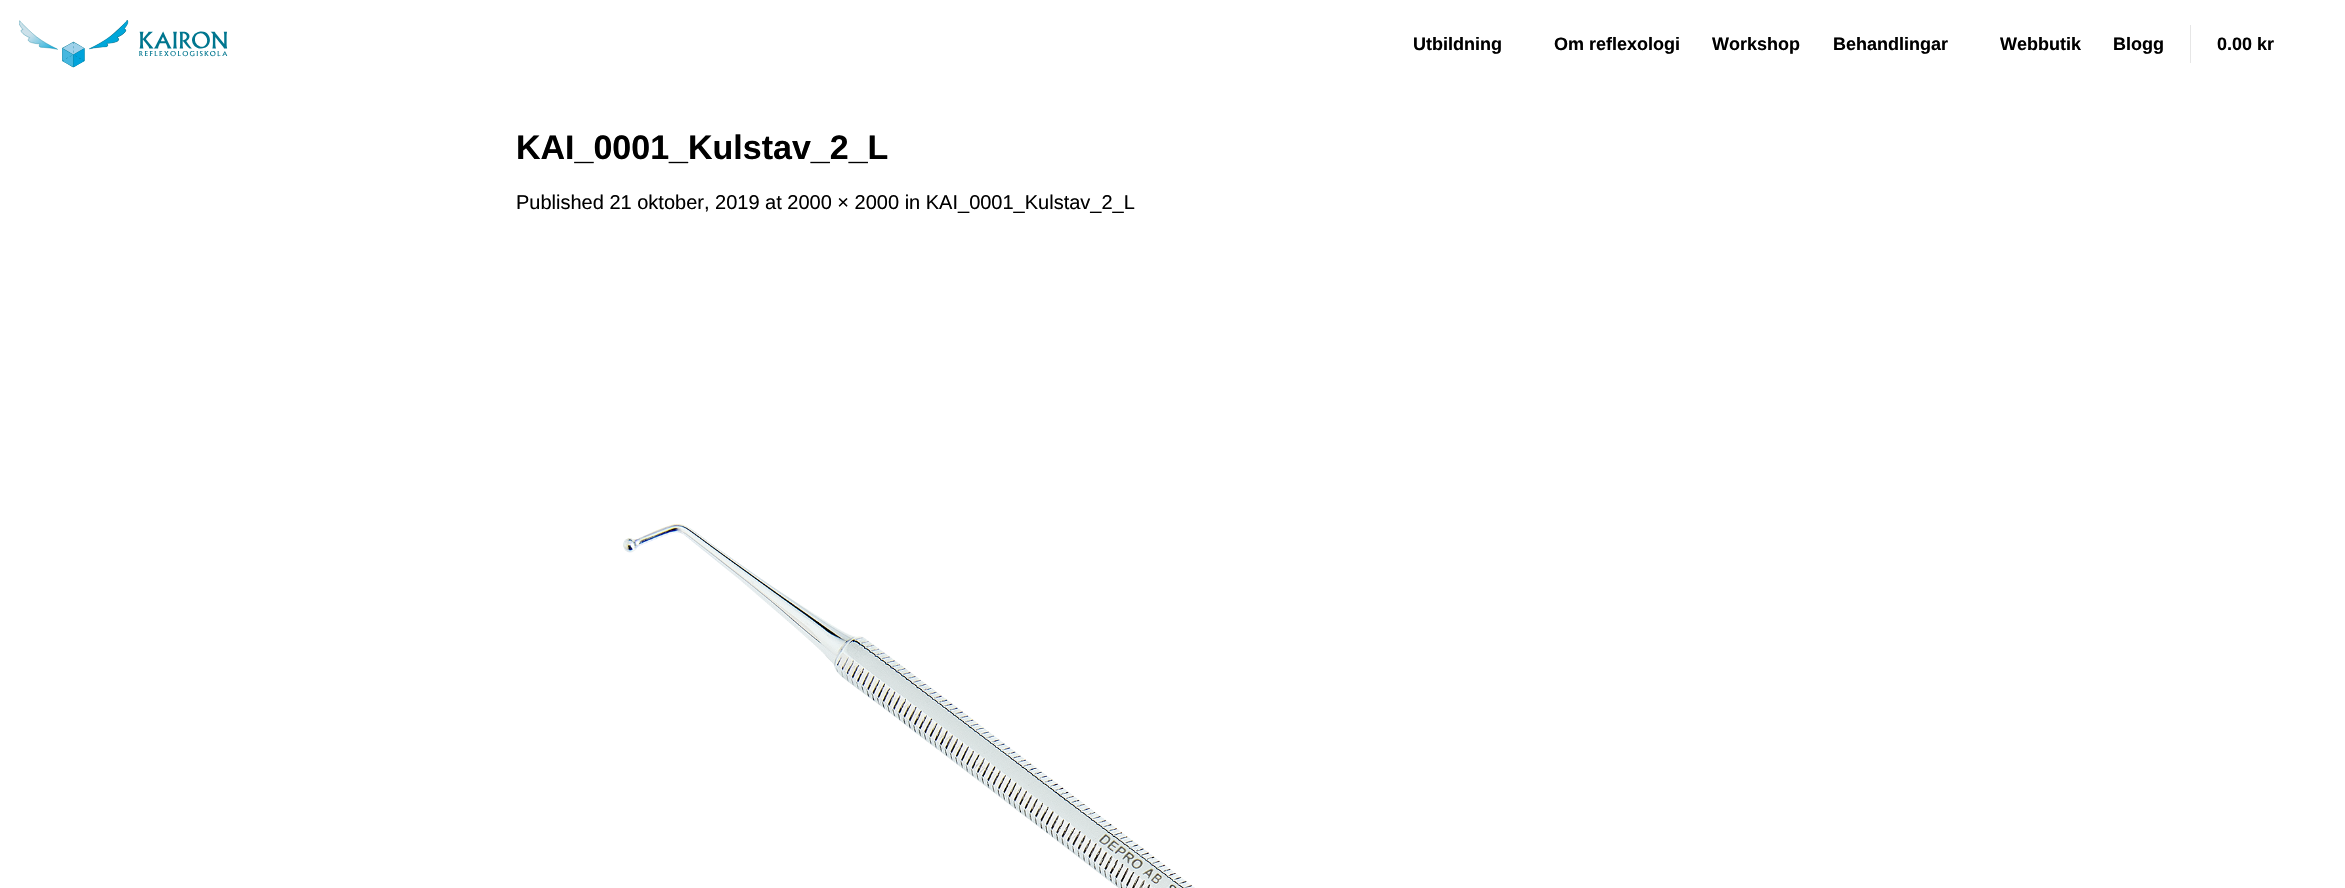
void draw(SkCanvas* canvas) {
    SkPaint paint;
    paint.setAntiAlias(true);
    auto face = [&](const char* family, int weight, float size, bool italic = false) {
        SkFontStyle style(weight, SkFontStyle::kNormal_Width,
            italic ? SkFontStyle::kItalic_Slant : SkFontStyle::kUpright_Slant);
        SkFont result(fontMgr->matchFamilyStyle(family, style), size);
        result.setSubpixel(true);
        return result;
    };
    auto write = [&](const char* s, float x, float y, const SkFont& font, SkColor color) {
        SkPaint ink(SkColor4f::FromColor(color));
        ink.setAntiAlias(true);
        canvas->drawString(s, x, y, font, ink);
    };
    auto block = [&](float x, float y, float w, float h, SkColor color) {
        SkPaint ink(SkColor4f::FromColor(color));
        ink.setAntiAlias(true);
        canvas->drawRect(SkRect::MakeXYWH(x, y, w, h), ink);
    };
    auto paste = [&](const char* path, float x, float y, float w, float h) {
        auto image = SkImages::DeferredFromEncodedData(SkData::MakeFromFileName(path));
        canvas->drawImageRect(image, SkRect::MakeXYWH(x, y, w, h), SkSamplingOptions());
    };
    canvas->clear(SK_ColorWHITE);
    paste("pic1.png", 19, 20, 209, 48);
    auto kFont1 = face("Liberation Sans", 700, 18);
    write("Utbildning", 1413, 50, kFont1, SK_ColorBLACK);
    write("Om reflexologi", 1554, 50, kFont1, SK_ColorBLACK);
    write("Workshop", 1712, 50, kFont1, SK_ColorBLACK);
    write("Behandlingar", 1833, 50, kFont1, SK_ColorBLACK);
    write("Webbutik", 2000, 50, kFont1, SK_ColorBLACK);
    write("Blogg", 2113, 50, kFont1, SK_ColorBLACK);
    block(2190, 25, 1, 38, SkColorSetRGB(230, 230, 230));
    write("0.00 kr", 2217, 50, kFont1, SK_ColorBLACK);
    auto kFont2 = face("Liberation Sans", 700, 34);
    write("KAI_0001_Kulstav_2_L", 516, 159, kFont2, SK_ColorBLACK);
    auto kFont3 = face("Liberation Sans", 400, 20);
    write("Published 21 oktober, 2019 at 2000 × 2000 in KAI_0001_Kulstav_2_L", 516, 209, kFont3, SK_ColorBLACK);
    paste("pic2.png", 623, 524, 572, 364);
}
